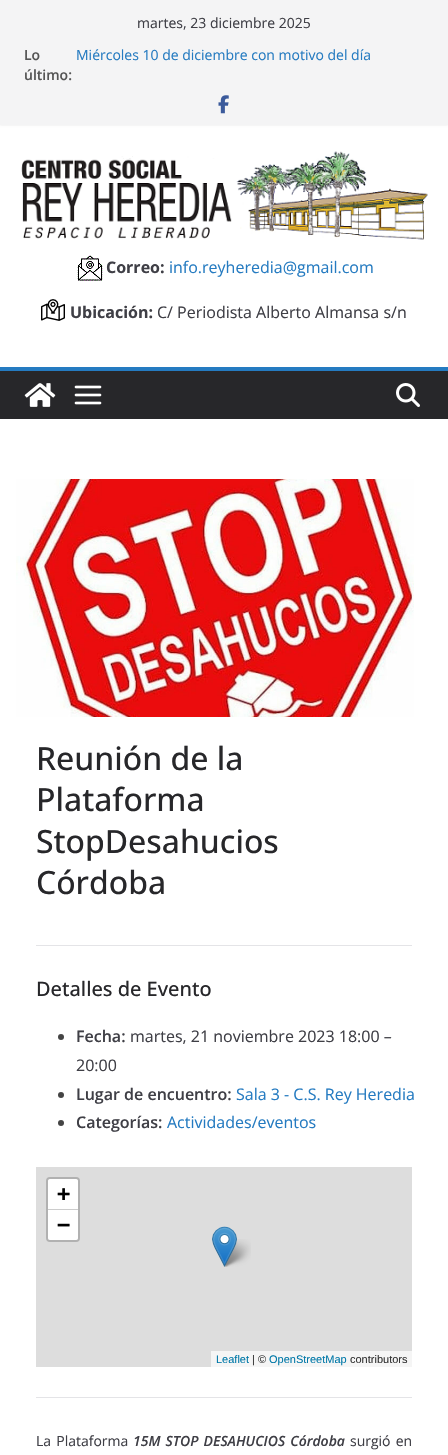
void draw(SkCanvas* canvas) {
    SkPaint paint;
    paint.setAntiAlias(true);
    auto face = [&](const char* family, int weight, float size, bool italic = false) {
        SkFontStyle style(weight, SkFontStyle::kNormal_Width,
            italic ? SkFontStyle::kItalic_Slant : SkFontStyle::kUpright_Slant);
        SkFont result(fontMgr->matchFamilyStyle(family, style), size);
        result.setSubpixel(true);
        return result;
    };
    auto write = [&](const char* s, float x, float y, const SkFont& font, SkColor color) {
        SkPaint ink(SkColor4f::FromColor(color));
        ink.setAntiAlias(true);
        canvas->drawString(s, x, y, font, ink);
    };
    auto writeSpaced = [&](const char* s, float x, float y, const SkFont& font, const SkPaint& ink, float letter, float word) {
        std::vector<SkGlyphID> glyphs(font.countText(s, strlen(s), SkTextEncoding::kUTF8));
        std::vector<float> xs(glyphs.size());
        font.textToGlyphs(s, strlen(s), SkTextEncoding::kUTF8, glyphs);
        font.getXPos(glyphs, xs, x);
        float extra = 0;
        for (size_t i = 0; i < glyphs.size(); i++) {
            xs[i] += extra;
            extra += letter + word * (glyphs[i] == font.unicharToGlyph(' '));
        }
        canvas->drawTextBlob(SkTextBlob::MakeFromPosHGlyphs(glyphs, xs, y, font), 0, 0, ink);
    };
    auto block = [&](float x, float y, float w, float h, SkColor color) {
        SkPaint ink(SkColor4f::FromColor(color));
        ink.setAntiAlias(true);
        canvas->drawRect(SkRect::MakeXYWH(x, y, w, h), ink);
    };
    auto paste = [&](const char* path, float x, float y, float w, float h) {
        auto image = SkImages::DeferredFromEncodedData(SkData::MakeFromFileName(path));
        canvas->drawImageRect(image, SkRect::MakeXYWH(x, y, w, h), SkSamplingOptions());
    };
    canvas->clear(SK_ColorWHITE);
    paint.setColor(SkColorSetARGB(26, 0, 0, 0));
    paint.setMaskFilter(SkMaskFilter::MakeBlur(kNormal_SkBlurStyle, 1));
    canvas->drawRect(SkRect::MakeXYWH(0, 0, 448, 125), paint);
    paint.setMaskFilter(nullptr);
    block(0, 0, 448, 125, SkColorSetRGB(244, 244, 245));
    auto kFont1 = face("Open Sans", 400, 14);
    write("martes, 23 diciembre 2025", 137, 28, kFont1, SkColorSetRGB(63, 63, 70));
    auto kFont2 = face("Open Sans", 600, 14);
    write("Lo", 24, 60, kFont2, SkColorSetRGB(85, 85, 85));
    write("último:", 24, 80, kFont2, SkColorSetRGB(85, 85, 85));
    write("Miércoles 10 de diciembre con motivo del día", 76, 60, kFont1, SkColorSetRGB(37, 123, 193));
    paste("pic1.png", 218, 95, 11, 19);
    paste("pic2.png", 21, 151, 407, 89);
    paste("pic3.png", 77, 255, 26, 26);
    auto kFont3 = face("Open Sans", 700, 16);
    write("Correo:", 106, 273, kFont3, SkColorSetRGB(63, 63, 70));
    auto kFont4 = face("Open Sans", 400, 16);
    write("info.reyheredia@gmail.com", 169, 273, kFont4, SkColorSetRGB(37, 123, 193));
    paste("pic4.png", 41, 299, 24, 22);
    write("Ubicación:", 70, 318, kFont3, SkColorSetRGB(63, 63, 70));
    write("C/ Periodista Alberto Almansa s/n", 157, 318, kFont4, SkColorSetRGB(63, 63, 70));
    block(0, 371, 448, 48, SkColorSetRGB(39, 39, 42));
    block(0, 367, 448, 4, SkColorSetRGB(37, 123, 193));
    paste("pic5.png", 24, 383, 32, 24);
    paste("pic6.png", 74, 385, 28, 20);
    paste("pic7.png", 396, 383, 24, 24);
    paste("pic8.png", 16, 479, 398, 238);
    auto kFont5 = face("Open Sans", 500, 32);
    write("Reunión de la", 36, 770, kFont5, SkColorSetRGB(39, 39, 42));
    write("Plataforma", 36, 811, kFont5, SkColorSetRGB(39, 39, 42));
    write("StopDesahucios", 36, 853, kFont5, SkColorSetRGB(39, 39, 42));
    write("Córdoba", 36, 894, kFont5, SkColorSetRGB(39, 39, 42));
    block(36, 945, 376, 1, SkColorSetRGB(228, 228, 231));
    auto kFont6 = face("Open Sans", 500, 20);
    write("Detalles de Evento", 36, 996, kFont6, SkColorSetRGB(39, 39, 42));
    paint.setColor(SkColorSetRGB(68, 68, 68));
    canvas->drawCircle(61, 1037, 3, paint);
    auto kFont7 = face("Open Sans", 600, 16);
    write("Fecha:", 76, 1042, kFont7, SkColorSetRGB(63, 63, 70));
    write("martes, 21 noviembre 2023 18:00 –", 130, 1042, kFont4, SkColorSetRGB(63, 63, 70));
    write("20:00", 76, 1071, kFont4, SkColorSetRGB(63, 63, 70));
    canvas->drawCircle(61, 1095, 3, paint);
    write("Lugar de encuentro:", 76, 1100, kFont7, SkColorSetRGB(63, 63, 70));
    write("Sala 3 - C.S. Rey Heredia", 236, 1100, kFont4, SkColorSetRGB(37, 123, 193));
    canvas->drawCircle(61, 1123, 3, paint);
    write("Categorías:", 76, 1128, kFont7, SkColorSetRGB(63, 63, 70));
    write("Actividades/eventos", 167, 1128, kFont4, SkColorSetRGB(37, 123, 193));
    block(36, 1167, 376, 200, SkColorSetRGB(221, 221, 221));
    paint.setStyle(SkPaint::kStroke_Style);
    paint.setStrokeWidth(2);
    paint.setColor(SkColorSetRGB(177, 177, 177));
    canvas->drawRoundRect(SkRect::MakeXYWH(47, 1178, 32, 63), 3, 3, paint);
    paint.setStyle(SkPaint::kFill_Style);
    paint.setColor(SK_ColorWHITE);
    canvas->drawPath(SkPathBuilder().moveTo(50, 1179).lineTo(76, 1179).cubicTo(77, 1179, 78, 1180, 78, 1181).lineTo(78, 1210).lineTo(48, 1210).lineTo(48, 1181).cubicTo(48, 1180, 49, 1179, 50, 1179).close().detach(), paint);
    block(48, 1209, 30, 1, SkColorSetRGB(204, 204, 204));
    auto kFont8 = face("DejaVu Sans Mono", 700, 22);
    write("+", 57, 1201, kFont8, SK_ColorBLACK);
    canvas->drawPath(SkPathBuilder().moveTo(48, 1210).lineTo(78, 1210).lineTo(78, 1238).cubicTo(78, 1239, 77, 1240, 76, 1240).lineTo(50, 1240).cubicTo(49, 1240, 48, 1239, 48, 1238).close().detach(), paint);
    write("−", 57, 1232, kFont8, SK_ColorBLACK);
    block(211, 1351, 201, 16, SkColorSetRGB(245, 245, 245));
    auto kFont9 = face("Liberation Sans", 400, 11);
    write("Leaflet", 216, 1363, kFont9, SkColorSetRGB(0, 120, 168));
    write("| ©", 252, 1363, kFont9, SkColorSetRGB(51, 51, 51));
    write("OpenStreetMap", 269, 1363, kFont9, SkColorSetRGB(0, 120, 168));
    write("contributors", 350, 1363, kFont9, SkColorSetRGB(51, 51, 51));
    paste("pic10.png", 222, 1239, 29, 28);
    paste("pic9.png", 212, 1226, 25, 41);
    block(36, 1397, 376, 1, SkColorSetRGB(228, 228, 231));
    paint.setColor(SkColorSetRGB(63, 63, 70));
    writeSpaced("La Plataforma", 36, 1446, kFont1, paint, 0, 1.5f);
    auto kFont10 = face("Open Sans", 600, 14, true);
    writeSpaced("15M STOP DESAHUCIOS Córdoba", 133, 1446, kFont10, paint, 0, 1.5f);
    writeSpaced("surgió en", 350, 1446, kFont1, paint, 0, 1.5f);
}
